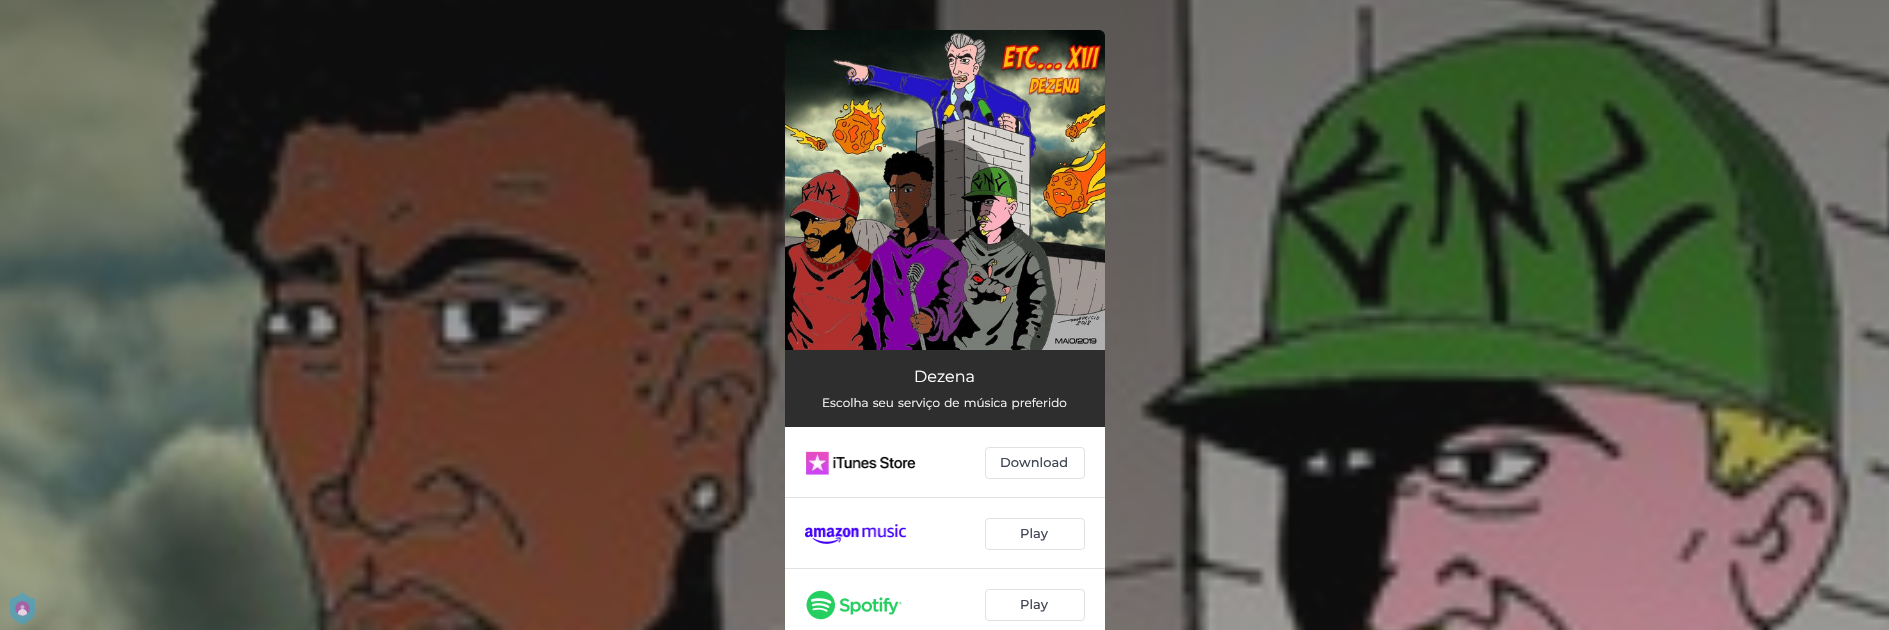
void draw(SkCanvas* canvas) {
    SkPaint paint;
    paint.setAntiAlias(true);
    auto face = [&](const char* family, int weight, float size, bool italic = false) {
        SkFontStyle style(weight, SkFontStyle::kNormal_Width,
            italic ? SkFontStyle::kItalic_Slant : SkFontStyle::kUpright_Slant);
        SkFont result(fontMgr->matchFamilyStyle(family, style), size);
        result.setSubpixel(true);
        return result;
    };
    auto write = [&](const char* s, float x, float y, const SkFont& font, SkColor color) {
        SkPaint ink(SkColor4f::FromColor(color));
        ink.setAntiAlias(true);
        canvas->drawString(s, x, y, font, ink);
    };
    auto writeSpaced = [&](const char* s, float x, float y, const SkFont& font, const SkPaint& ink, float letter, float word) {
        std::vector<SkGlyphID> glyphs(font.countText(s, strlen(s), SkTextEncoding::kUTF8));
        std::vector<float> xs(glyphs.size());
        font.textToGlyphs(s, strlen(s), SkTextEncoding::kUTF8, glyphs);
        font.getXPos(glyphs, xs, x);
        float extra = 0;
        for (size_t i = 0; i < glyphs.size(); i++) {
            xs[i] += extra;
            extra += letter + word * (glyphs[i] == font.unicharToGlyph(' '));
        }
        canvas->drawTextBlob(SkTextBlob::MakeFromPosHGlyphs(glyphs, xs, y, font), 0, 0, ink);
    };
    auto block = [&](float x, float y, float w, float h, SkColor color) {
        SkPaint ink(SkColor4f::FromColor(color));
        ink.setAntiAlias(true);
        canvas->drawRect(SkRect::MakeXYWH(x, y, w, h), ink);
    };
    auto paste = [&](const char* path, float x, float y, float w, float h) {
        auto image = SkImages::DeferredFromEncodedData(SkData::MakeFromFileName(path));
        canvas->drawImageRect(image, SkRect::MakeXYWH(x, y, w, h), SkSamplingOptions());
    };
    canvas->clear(SK_ColorWHITE);
    paste("pic2.png", 0, 0, 1889, 630);
    paste("pic1.png", 10, 592, 25, 33);
    paste("pic3.png", 785, 30, 320, 320);
    paint.setColor(SkColorSetARGB(115, 0, 0, 0));
    canvas->drawCircle(945, 190, 50, paint);
    auto kFont1 = face("Montserrat", 400, 13);
    paint.setColor(SkColorSetRGB(53, 42, 147));
    writeSpaced("You'", 845, 85, kFont1, paint, 0, 1);
    block(785, 350, 320, 77, SkColorSetRGB(46, 46, 46));
    auto kFont2 = face("Montserrat", 400, 16);
    write("Dezena", 914, 382, kFont2, SK_ColorWHITE);
    auto kFont3 = face("Montserrat", 400, 12);
    paint.setColor(SK_ColorWHITE);
    writeSpaced("Escolha seu serviço de música preferido", 822, 407, kFont3, paint, 0, 1);
    block(785, 427, 320, 203, SK_ColorWHITE);
    block(785, 497, 320, 1, SkColorSetRGB(225, 225, 228));
    paste("pic4.png", 806, 451, 110, 24);
    paint.setStyle(SkPaint::kStroke_Style);
    paint.setStrokeWidth(1);
    paint.setColor(SkColorSetRGB(225, 225, 228));
    canvas->drawRoundRect(SkRect::MakeXYWH(985.5f, 447.5f, 99, 31), 3.5f, 3.5f, paint);
    auto kFont4 = face("Montserrat", 500, 13);
    write("Download", 1000, 467, kFont4, SkColorSetRGB(65, 71, 84));
    block(785, 568, 320, 1, SkColorSetRGB(225, 225, 228));
    paste("pic5.png", 805, 524, 101, 20);
    canvas->drawRoundRect(SkRect::MakeXYWH(985.5f, 518.5f, 99, 31), 3.5f, 3.5f, paint);
    write("Play", 1020, 538, kFont4, SkColorSetRGB(65, 71, 84));
    paste("pic6.png", 806, 590, 96, 30);
    canvas->drawRoundRect(SkRect::MakeXYWH(985.5f, 589.5f, 99, 31), 3.5f, 3.5f, paint);
    write("Play", 1020, 609, kFont4, SkColorSetRGB(65, 71, 84));
}
